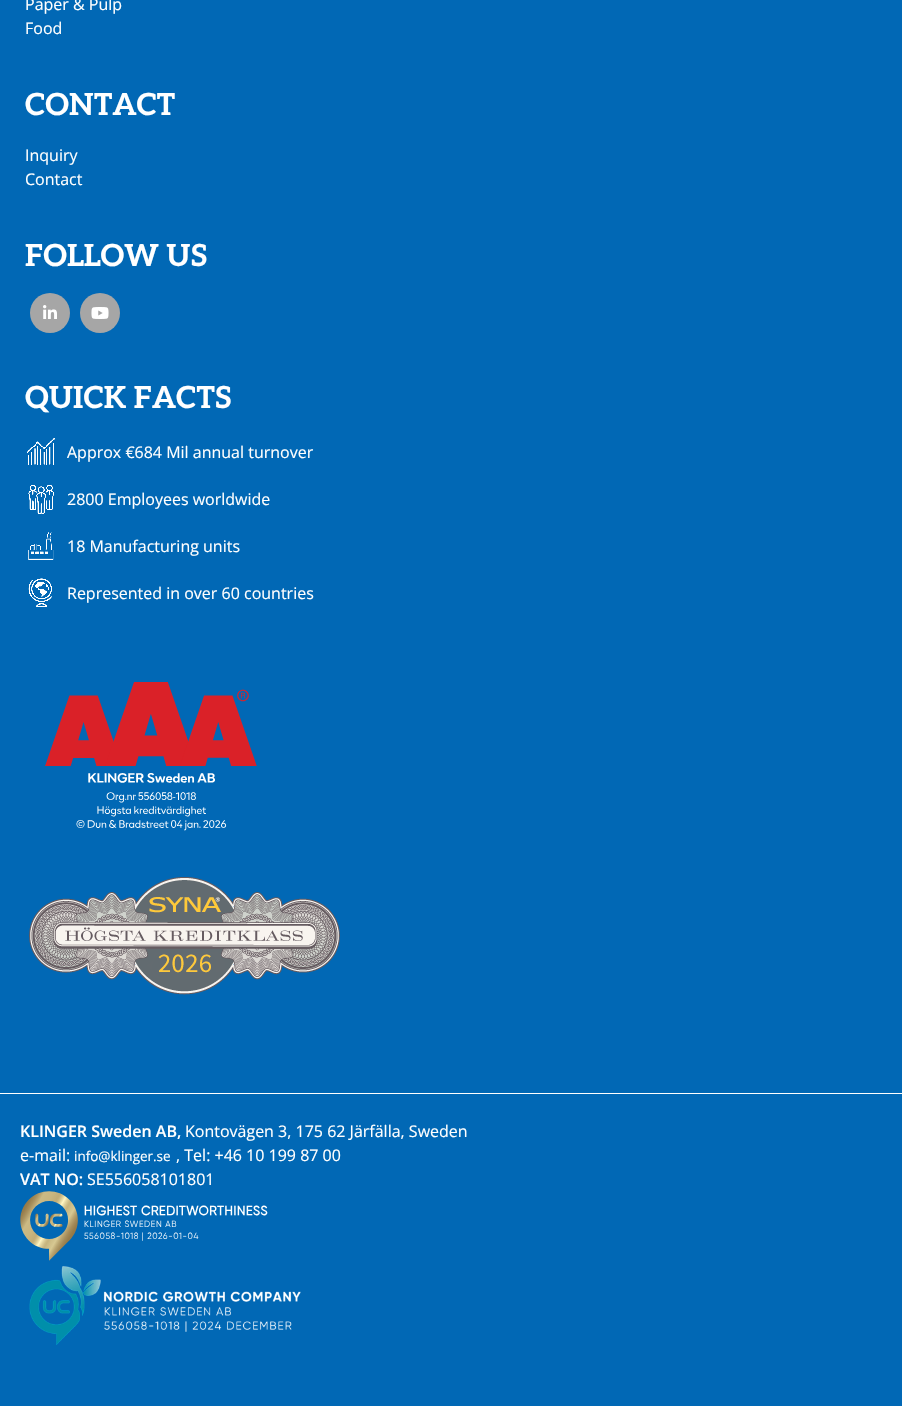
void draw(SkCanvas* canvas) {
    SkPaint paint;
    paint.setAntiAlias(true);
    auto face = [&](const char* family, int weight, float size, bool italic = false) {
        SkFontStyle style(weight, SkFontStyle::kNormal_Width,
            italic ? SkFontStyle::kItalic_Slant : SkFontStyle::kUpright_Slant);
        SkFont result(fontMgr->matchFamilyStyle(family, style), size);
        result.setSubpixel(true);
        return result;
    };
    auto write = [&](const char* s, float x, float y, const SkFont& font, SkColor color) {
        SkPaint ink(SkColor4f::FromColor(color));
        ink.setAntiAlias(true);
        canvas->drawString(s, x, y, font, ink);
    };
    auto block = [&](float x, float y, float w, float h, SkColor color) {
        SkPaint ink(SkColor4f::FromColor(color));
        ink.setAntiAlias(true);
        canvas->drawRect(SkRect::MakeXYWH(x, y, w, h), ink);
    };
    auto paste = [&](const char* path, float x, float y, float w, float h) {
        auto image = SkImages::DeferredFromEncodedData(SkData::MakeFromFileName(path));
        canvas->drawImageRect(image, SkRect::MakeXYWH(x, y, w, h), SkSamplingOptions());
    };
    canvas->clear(SkColorSetRGB(1, 104, 181));
    block(0, 1093, 902, 1, SK_ColorWHITE);
    auto kFont1 = face("Open Sans", 400, 16);
    write("Paper & Pulp", 25, 10, kFont1, SK_ColorWHITE);
    write("Food", 25, 34, kFont1, SK_ColorWHITE);
    auto kFont2 = face("Aleo", 700, 30.5f);
    write("CONTACT", 25, 115, kFont2, SK_ColorWHITE);
    write("Inquiry", 25, 161, kFont1, SK_ColorWHITE);
    write("Contact", 25, 185, kFont1, SK_ColorWHITE);
    write("FOLLOW US", 25, 266, kFont2, SK_ColorWHITE);
    paint.setColor(SkColorSetRGB(166, 166, 166));
    canvas->drawCircle(50, 313, 20, paint);
    paste("pic1.png", 43, 305, 14, 14);
    canvas->drawCircle(100, 313, 20, paint);
    paste("pic2.png", 91, 307, 18, 12);
    write("QUICK FACTS", 25, 408, kFont2, SK_ColorWHITE);
    paste("pic3.png", 27, 438, 28, 27);
    write("Approx €684 Mil annual turnover", 67, 458, kFont1, SK_ColorWHITE);
    paste("pic4.png", 28, 485, 26, 29);
    write("2800 Employees worldwide", 67, 505, kFont1, SK_ColorWHITE);
    paste("pic5.png", 28, 532, 26, 28);
    write("18 Manufacturing units", 67, 552, kFont1, SK_ColorWHITE);
    paste("pic6.png", 28, 578, 24, 29);
    write("Represented in over 60 countries", 67, 599, kFont1, SK_ColorWHITE);
    paste("pic7.png", 45, 682, 212, 149);
    paste("pic8.png", 29, 877, 311, 118);
    auto kFont3 = face("Open Sans", 600, 16);
    write("KLINGER Sweden AB,", 20, 1137, kFont3, SK_ColorWHITE);
    write("Kontovägen 3, 175 62 Järfälla, Sweden", 185, 1137, kFont1, SK_ColorWHITE);
    write("e-mail:", 20, 1161, kFont1, SK_ColorWHITE);
    auto kFont4 = face("Open Sans", 400, 13.5f);
    write("info@klinger.se", 74, 1161, kFont4, SK_ColorWHITE);
    write(", Tel: +46 10 199 87 00", 176, 1161, kFont1, SK_ColorWHITE);
    write("VAT NO:", 20, 1185, kFont3, SK_ColorWHITE);
    write("SE556058101801", 87, 1185, kFont1, SK_ColorWHITE);
    paste("pic9.png", 20, 1191, 248, 70);
    paste("pic10.png", 29, 1266, 272, 79);
}
